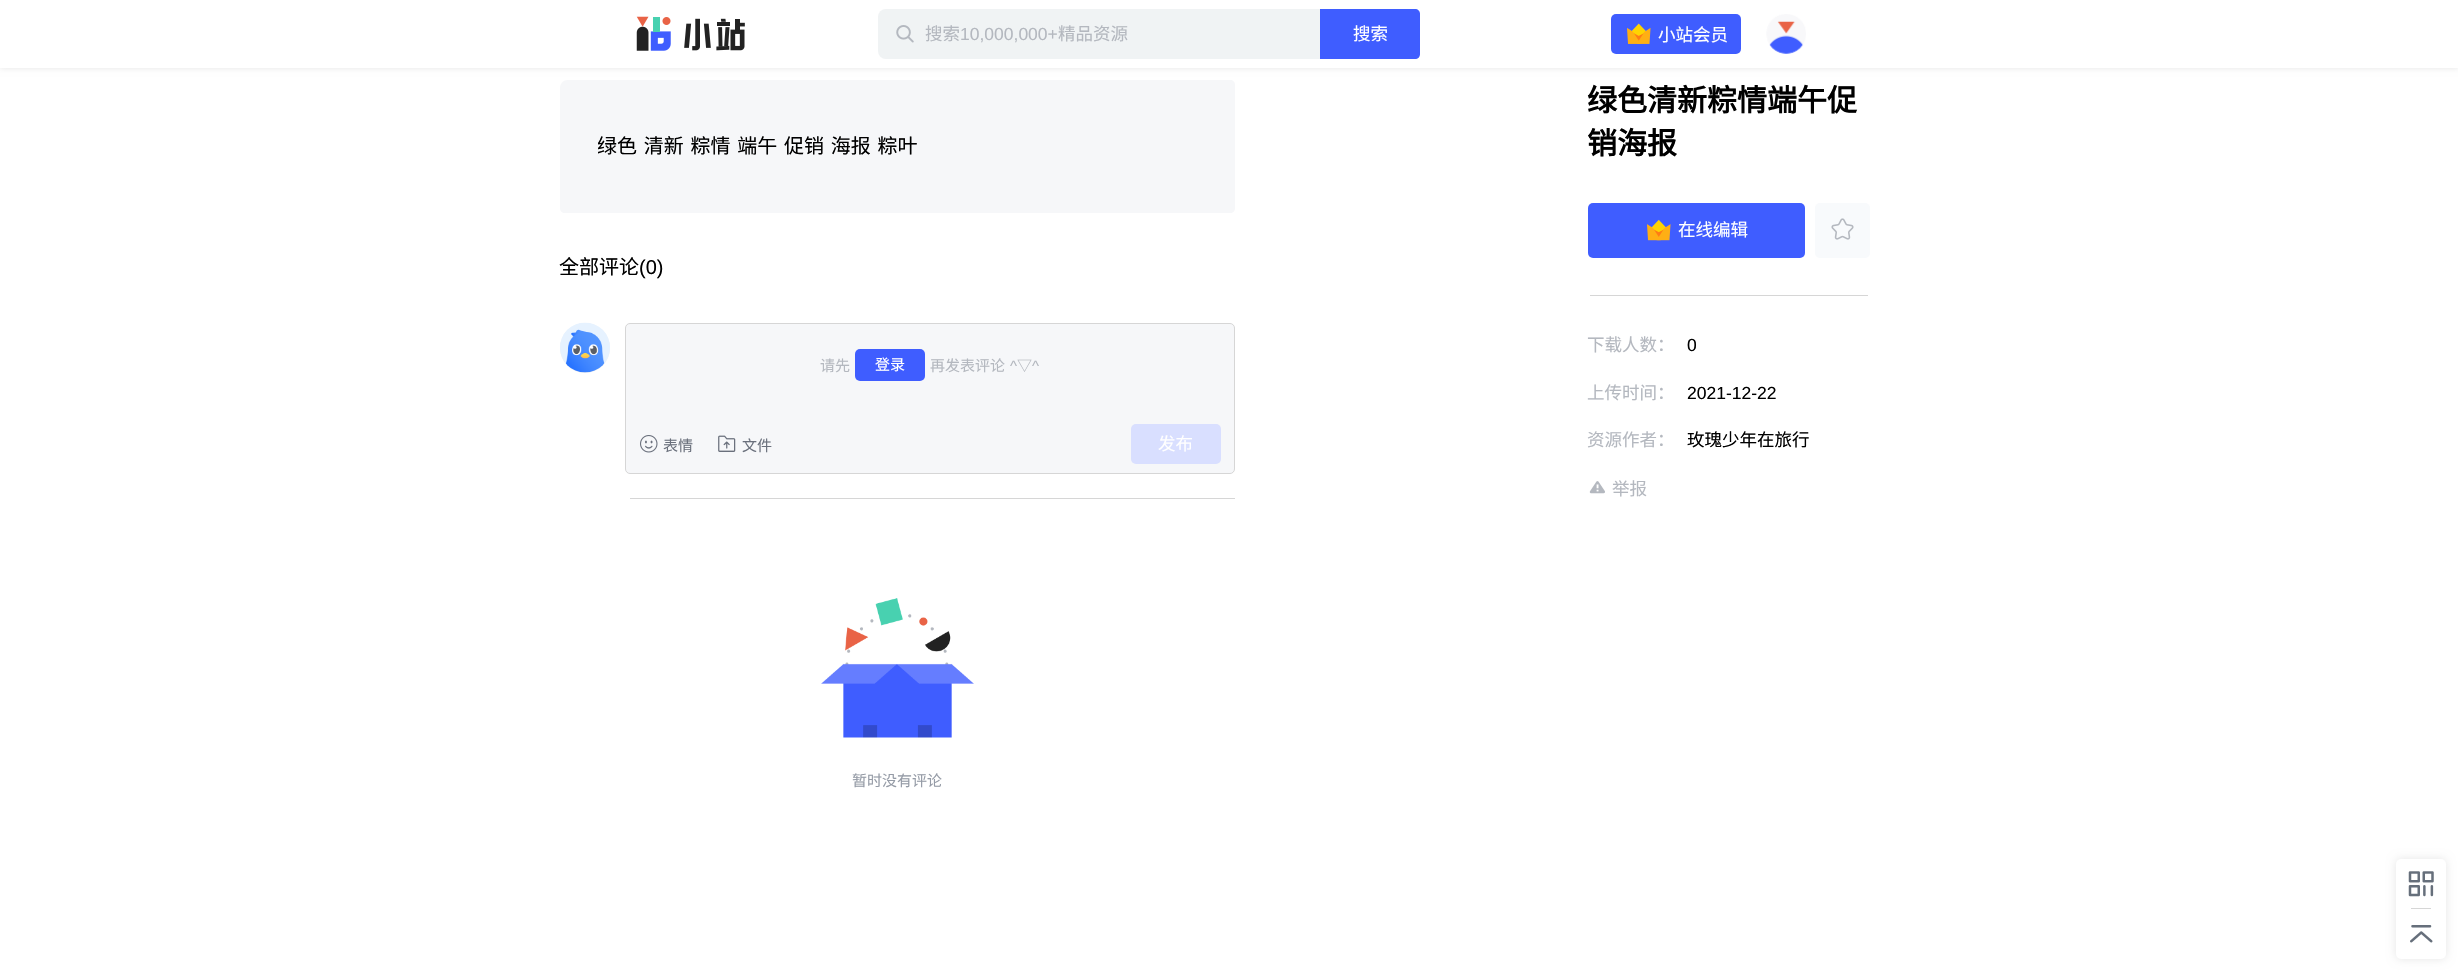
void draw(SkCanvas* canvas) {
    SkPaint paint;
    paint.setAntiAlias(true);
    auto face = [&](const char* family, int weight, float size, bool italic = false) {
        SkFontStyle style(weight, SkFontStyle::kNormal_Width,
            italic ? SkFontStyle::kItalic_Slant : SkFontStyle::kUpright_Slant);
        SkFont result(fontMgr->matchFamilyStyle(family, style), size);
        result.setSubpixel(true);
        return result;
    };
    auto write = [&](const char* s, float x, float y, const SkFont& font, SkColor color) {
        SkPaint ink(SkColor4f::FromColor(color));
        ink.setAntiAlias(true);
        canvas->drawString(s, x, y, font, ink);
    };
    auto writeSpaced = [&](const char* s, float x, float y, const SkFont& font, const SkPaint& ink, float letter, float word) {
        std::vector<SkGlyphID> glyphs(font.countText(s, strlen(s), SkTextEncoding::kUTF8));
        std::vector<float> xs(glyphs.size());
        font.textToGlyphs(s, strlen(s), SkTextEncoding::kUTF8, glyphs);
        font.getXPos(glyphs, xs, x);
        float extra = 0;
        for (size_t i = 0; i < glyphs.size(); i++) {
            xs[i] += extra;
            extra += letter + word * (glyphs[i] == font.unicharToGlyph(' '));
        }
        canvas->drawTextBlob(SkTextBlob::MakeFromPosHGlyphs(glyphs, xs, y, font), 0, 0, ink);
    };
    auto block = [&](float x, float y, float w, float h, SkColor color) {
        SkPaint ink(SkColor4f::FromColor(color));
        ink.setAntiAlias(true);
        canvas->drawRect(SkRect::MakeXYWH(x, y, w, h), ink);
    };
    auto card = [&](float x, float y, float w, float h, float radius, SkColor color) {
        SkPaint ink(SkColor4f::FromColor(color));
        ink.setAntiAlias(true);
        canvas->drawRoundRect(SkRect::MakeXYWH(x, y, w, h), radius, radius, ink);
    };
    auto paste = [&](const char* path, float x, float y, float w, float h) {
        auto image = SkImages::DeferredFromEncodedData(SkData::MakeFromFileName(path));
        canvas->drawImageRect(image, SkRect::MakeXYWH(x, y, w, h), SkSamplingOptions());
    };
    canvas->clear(SK_ColorWHITE);
    paint.setColor(SkColorSetARGB(26, 0, 0, 0));
    paint.setMaskFilter(SkMaskFilter::MakeBlur(kNormal_SkBlurStyle, 3));
    canvas->drawRect(SkRect::MakeXYWH(0, 0, 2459, 68), paint);
    paint.setMaskFilter(nullptr);
    block(0, 0, 2458, 68, SK_ColorWHITE);
    paste("pic1.png", 636, 16, 109, 35);
    card(878, 9, 542, 50, 8, SkColorSetRGB(240, 243, 244));
    paste("pic2.png", 896, 25, 18, 18);
    auto kFont1 = face("Noto Sans CJK SC", 400, 17.5f);
    write("搜索", 925, 40, kFont1, SkColorSetRGB(180, 184, 191));
    auto kFont2 = face("Liberation Sans", 400, 17.5f);
    write("10,000,000+", 960, 40, kFont2, SkColorSetRGB(180, 184, 191));
    write("精品资源", 1058, 40, kFont1, SkColorSetRGB(180, 184, 191));
    paint.setColor(SkColorSetRGB(63, 93, 255));
    canvas->drawPath(SkPathBuilder().moveTo(1320, 9).lineTo(1415, 9).cubicTo(1418, 9, 1420, 11, 1420, 14).lineTo(1420, 54).cubicTo(1420, 57, 1418, 59, 1415, 59).lineTo(1320, 59).close().detach(), paint);
    write("搜索", 1353, 40, kFont1, SK_ColorWHITE);
    card(1611, 14, 130, 40, 5, SkColorSetRGB(63, 93, 255));
    paste("pic3.png", 1627, 23, 24, 21);
    write("小站会员", 1658, 41, kFont1, SK_ColorWHITE);
    paste("pic4.png", 1766, 14, 40, 40);
    paint.setColor(SkColorSetRGB(246, 247, 249));
    canvas->drawPath(SkPathBuilder().moveTo(568, 80).lineTo(1230, 80).cubicTo(1233, 80, 1235, 82, 1235, 85).lineTo(1235, 208).cubicTo(1235, 211, 1233, 213, 1230, 213).lineTo(565, 213).cubicTo(562, 213, 560, 211, 560, 208).lineTo(560, 88).cubicTo(560, 83.5f, 563.5f, 80, 568, 80).close().detach(), paint);
    canvas->save();
    canvas->clipRect(SkRect::MakeXYWH(598, 130, 600, 33));
    auto kFont3 = face("Noto Sans CJK SC", 400, 20);
    paint.setColor(SK_ColorBLACK);
    writeSpaced("绿色 清新 粽情 端午 促销 海报 粽叶", 597, 153, kFont3, paint, 0, 2.25f);
    canvas->restore();
    write("全部评论", 559, 274, kFont3, SK_ColorBLACK);
    auto kFont4 = face("Liberation Sans", 400, 20);
    write("(0)", 639, 274, kFont4, SK_ColorBLACK);
    paint.setColor(SkColorSetRGB(240, 240, 240));
    canvas->drawCircle(585, 348, 25, paint);
    paste("pic5.png", 560, 322, 50, 51);
    paint.setColor(SkColorSetRGB(246, 247, 249));
    canvas->drawRoundRect(SkRect::MakeXYWH(625.5f, 323.5f, 609, 150), 4.5f, 4.5f, paint);
    paint.setStyle(SkPaint::kStroke_Style);
    paint.setStrokeWidth(1);
    paint.setColor(SkColorSetRGB(214, 214, 214));
    canvas->drawRoundRect(SkRect::MakeXYWH(625.5f, 323.5f, 609, 150), 4.5f, 4.5f, paint);
    auto kFont5 = face("Noto Sans CJK SC", 400, 15);
    write("请先", 820, 371, kFont5, SkColorSetRGB(180, 184, 191));
    card(855, 349, 70, 32, 5, SkColorSetRGB(63, 93, 255));
    write("登录", 875, 370, kFont5, SK_ColorWHITE);
    write("再发表评论", 930, 371, kFont5, SkColorSetRGB(180, 184, 191));
    auto kFont6 = face("Liberation Sans", 400, 15);
    write("^", 1010, 371, kFont6, SkColorSetRGB(180, 184, 191));
    write("▽", 1017, 371, kFont5, SkColorSetRGB(180, 184, 191));
    write("^", 1032, 371, kFont6, SkColorSetRGB(180, 184, 191));
    paste("pic6.png", 640, 435, 18, 18);
    write("表情", 663, 451, kFont5, SkColorSetRGB(106, 112, 124));
    paste("pic7.png", 718, 435, 18, 17);
    write("文件", 742, 451, kFont5, SkColorSetRGB(106, 112, 124));
    card(1131, 424, 90, 40, 5, SkColorSetRGB(217, 223, 255));
    write("发布", 1158, 450, kFont1, SK_ColorWHITE);
    block(630, 498, 605, 1, SkColorSetRGB(214, 214, 214));
    paste("pic8.png", 821, 598, 153, 140);
    write("暂时没有评论", 852, 786, kFont5, SkColorSetRGB(149, 155, 166));
    auto kFont7 = face("Noto Sans CJK SC", 700, 30);
    write("绿色清新粽情端午促", 1587, 111, kFont7, SK_ColorBLACK);
    write("销海报", 1587, 154, kFont7, SK_ColorBLACK);
    card(1588, 203, 217, 55, 5, SkColorSetRGB(63, 93, 255));
    paste("pic9.png", 1647, 219, 24, 22);
    write("在线编辑", 1678, 236, kFont1, SK_ColorWHITE);
    card(1815, 203, 55, 55, 5, SkColorSetRGB(248, 250, 252));
    paste("pic10.png", 1831, 218, 23, 22);
    block(1590, 295, 278, 1, SkColorSetRGB(214, 214, 214));
    write("下载人数：", 1587, 351, kFont1, SkColorSetRGB(180, 184, 191));
    write("0", 1687, 351, kFont2, SK_ColorBLACK);
    write("上传时间：", 1587, 399, kFont1, SkColorSetRGB(180, 184, 191));
    write("2021-12-22", 1687, 399, kFont2, SK_ColorBLACK);
    write("资源作者：", 1587, 446, kFont1, SkColorSetRGB(180, 184, 191));
    write("玫瑰少年在旅行", 1687, 446, kFont1, SK_ColorBLACK);
    paste("pic11.png", 1589, 481, 16, 13);
    write("举报", 1612, 495, kFont1, SkColorSetRGB(180, 184, 191));
    paint.setStyle(SkPaint::kFill_Style);
    paint.setColor(SkColorSetARGB(26, 0, 0, 0));
    paint.setMaskFilter(SkMaskFilter::MakeBlur(kNormal_SkBlurStyle, 5));
    canvas->drawRoundRect(SkRect::MakeXYWH(2396, 859, 50, 100), 5, 5, paint);
    paint.setMaskFilter(nullptr);
    card(2396, 859, 50, 100, 5, SK_ColorWHITE);
    paste("pic12.png", 2408, 871, 26, 26);
    block(2411, 908, 20, 1, SkColorSetRGB(214, 214, 214));
    paste("pic13.png", 2410, 925, 23, 18);
}
